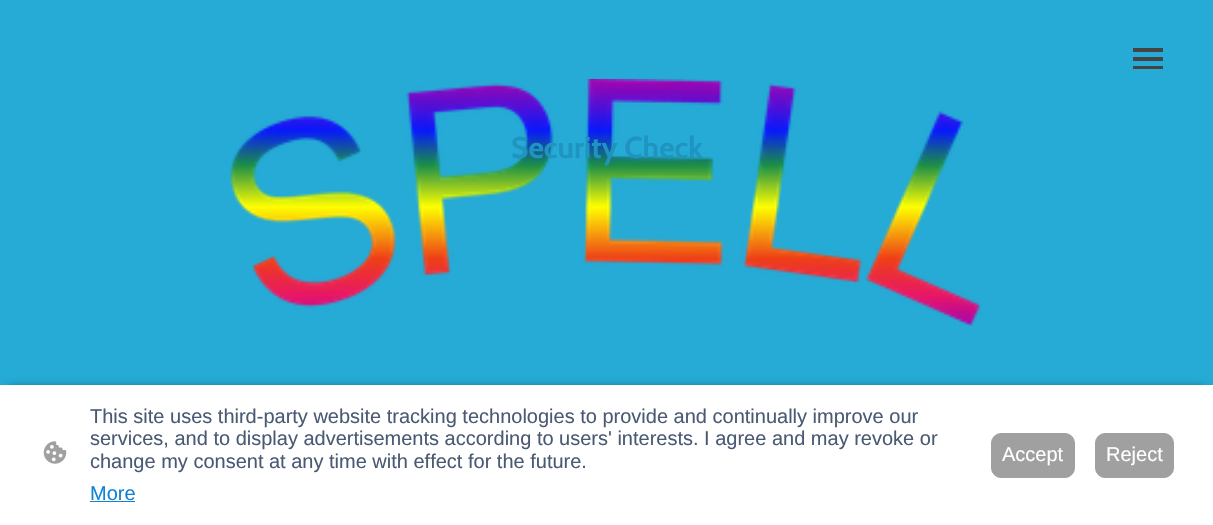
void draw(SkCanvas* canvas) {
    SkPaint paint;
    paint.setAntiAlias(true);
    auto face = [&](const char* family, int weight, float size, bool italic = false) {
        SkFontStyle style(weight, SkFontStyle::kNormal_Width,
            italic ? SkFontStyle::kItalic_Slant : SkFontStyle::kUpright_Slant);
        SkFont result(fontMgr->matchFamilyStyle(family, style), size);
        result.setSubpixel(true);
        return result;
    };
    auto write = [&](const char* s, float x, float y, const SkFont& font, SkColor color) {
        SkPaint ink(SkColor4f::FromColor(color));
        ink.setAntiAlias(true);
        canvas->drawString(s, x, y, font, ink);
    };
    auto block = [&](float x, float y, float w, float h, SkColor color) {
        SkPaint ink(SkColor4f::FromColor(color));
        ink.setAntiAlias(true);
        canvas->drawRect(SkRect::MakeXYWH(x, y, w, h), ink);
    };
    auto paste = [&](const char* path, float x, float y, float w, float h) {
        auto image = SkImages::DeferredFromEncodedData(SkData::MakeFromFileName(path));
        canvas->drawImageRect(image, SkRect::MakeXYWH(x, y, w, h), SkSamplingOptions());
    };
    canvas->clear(SkColorSetRGB(37, 171, 214));
    block(1133, 48, 30, 4, SkColorSetRGB(68, 68, 68));
    block(1133, 57, 30, 4, SkColorSetRGB(68, 68, 68));
    block(1133, 66, 30, 3, SkColorSetRGB(68, 68, 68));
    paste("pic1.png", 230, 78, 752, 248);
    auto kFont1 = face("Cabin", 700, 30);
    write("Security Check", 511, 158, kFont1, SkColorSetRGB(31, 148, 193));
    paint.setColor(SkColorSetARGB(161, 0, 0, 0));
    paint.setMaskFilter(SkMaskFilter::MakeBlur(kNormal_SkBlurStyle, 5));
    canvas->drawRect(SkRect::MakeXYWH(8, 389, 1198, 125), paint);
    paint.setMaskFilter(nullptr);
    block(0, 385, 1213, 140, SK_ColorWHITE);
    paste("pic2.png", 43, 441, 24, 23);
    auto kFont2 = face("Liberation Sans", 400, 20);
    write("This site uses third-party website tracking technologies to provide and continually improve our", 90, 423, kFont2, SkColorSetRGB(74, 90, 115));
    write("services, and to display advertisements according to users' interests. I agree and may revoke or", 90, 445, kFont2, SkColorSetRGB(74, 90, 115));
    write("change my consent at any time with effect for the future.", 90, 468, kFont2, SkColorSetRGB(74, 90, 115));
    write("More", 90, 500, kFont2, SkColorSetRGB(17, 131, 209));
    block(90, 501, 45, 1, SkColorSetRGB(17, 131, 209));
    paint.setColor(SkColorSetRGB(160, 160, 160));
    canvas->drawRoundRect(SkRect::MakeXYWH(991.5f, 433.5f, 83, 44), 9.5f, 9.5f, paint);
    paint.setStyle(SkPaint::kStroke_Style);
    paint.setStrokeWidth(1);
    canvas->drawRoundRect(SkRect::MakeXYWH(991.5f, 433.5f, 83, 44), 9.5f, 9.5f, paint);
    write("Accept", 1002, 461, kFont2, SK_ColorWHITE);
    paint.setStyle(SkPaint::kFill_Style);
    canvas->drawRoundRect(SkRect::MakeXYWH(1095.5f, 433.5f, 78, 44), 9.5f, 9.5f, paint);
    paint.setStyle(SkPaint::kStroke_Style);
    canvas->drawRoundRect(SkRect::MakeXYWH(1095.5f, 433.5f, 78, 44), 9.5f, 9.5f, paint);
    write("Reject", 1106, 461, kFont2, SK_ColorWHITE);
}
